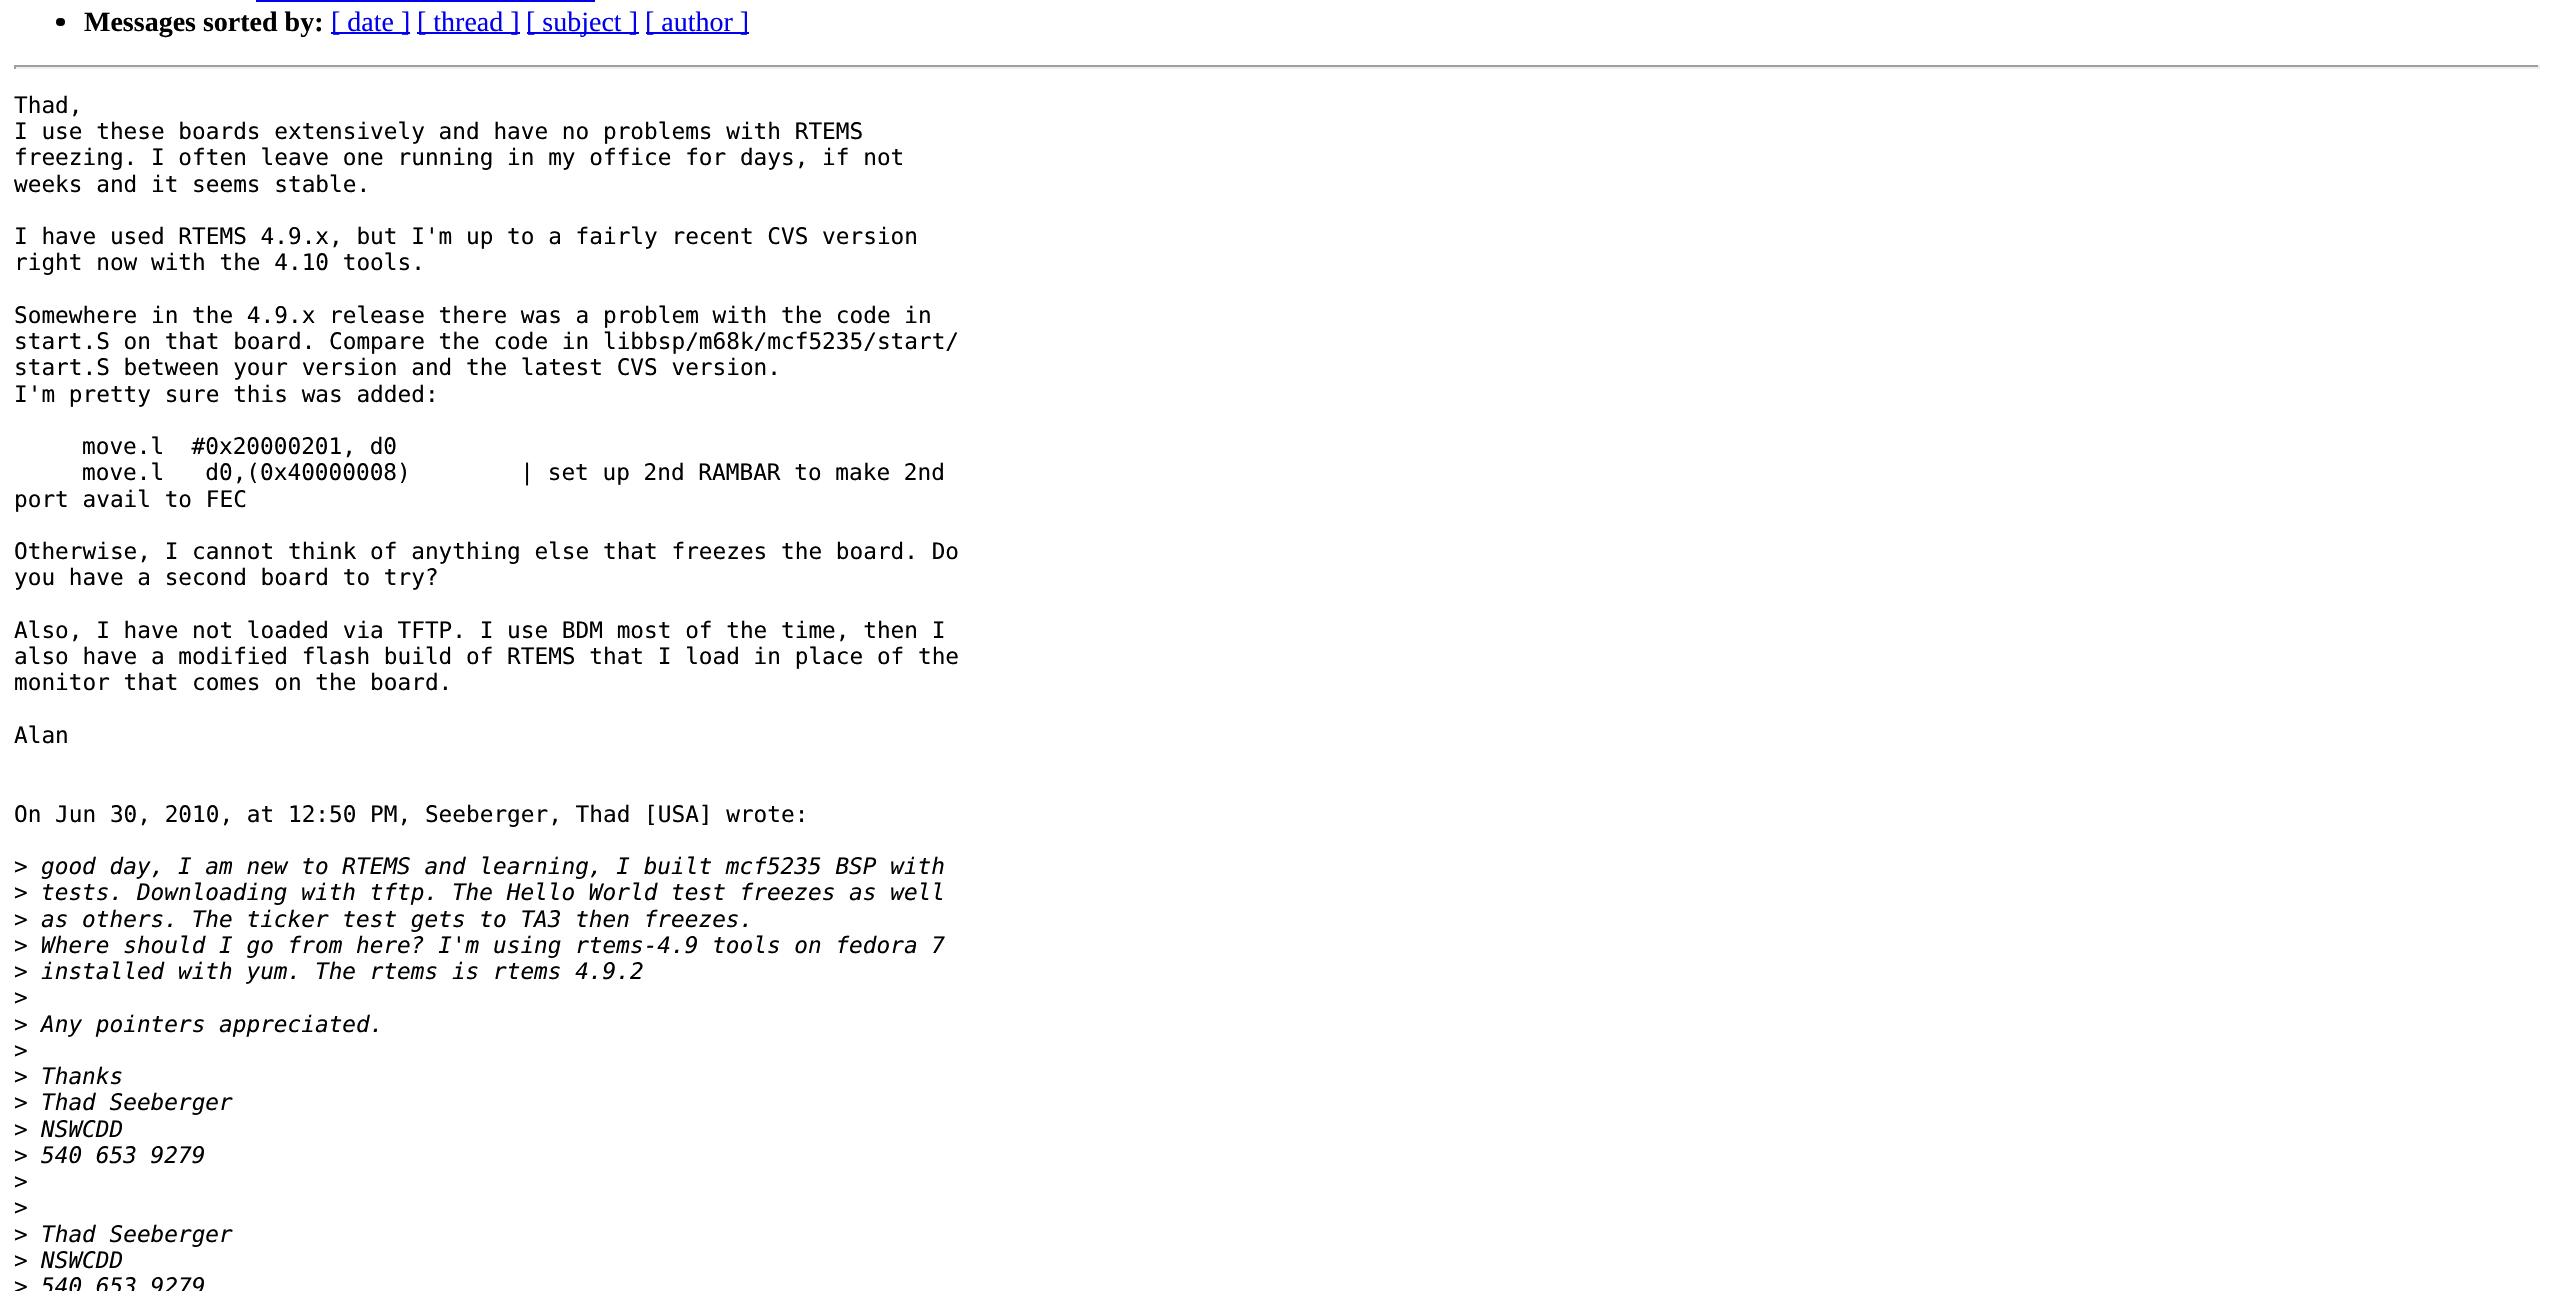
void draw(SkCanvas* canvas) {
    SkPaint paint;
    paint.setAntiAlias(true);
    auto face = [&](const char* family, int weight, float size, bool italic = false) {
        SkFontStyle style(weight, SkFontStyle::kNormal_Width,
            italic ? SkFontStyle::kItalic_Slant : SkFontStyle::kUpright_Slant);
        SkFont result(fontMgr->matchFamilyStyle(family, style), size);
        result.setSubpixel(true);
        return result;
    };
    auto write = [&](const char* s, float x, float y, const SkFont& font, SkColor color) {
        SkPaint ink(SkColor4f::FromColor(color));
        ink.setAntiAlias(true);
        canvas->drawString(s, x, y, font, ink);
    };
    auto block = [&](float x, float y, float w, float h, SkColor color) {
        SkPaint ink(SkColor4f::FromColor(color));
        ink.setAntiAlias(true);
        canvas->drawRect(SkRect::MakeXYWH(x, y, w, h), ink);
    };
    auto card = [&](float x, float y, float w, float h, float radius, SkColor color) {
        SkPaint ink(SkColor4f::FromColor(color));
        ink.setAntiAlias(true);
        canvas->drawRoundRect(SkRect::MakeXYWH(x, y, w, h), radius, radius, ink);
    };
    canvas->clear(SK_ColorWHITE);
    block(256, 0, 339, 2, SkColorSetRGB(0, 0, 238));
    card(56, 18, 9, 8, 4, SK_ColorBLACK);
    auto kFont1 = face("Liberation Serif", 700, 28);
    write("Messages sorted by:", 84, 31, kFont1, SK_ColorBLACK);
    block(331, 32, 79, 2, SkColorSetRGB(0, 0, 238));
    auto kFont2 = face("Liberation Serif", 400, 28);
    write("[ date ]", 331, 31, kFont2, SkColorSetRGB(0, 0, 238));
    block(417, 32, 103, 2, SkColorSetRGB(0, 0, 238));
    write("[ thread ]", 417, 31, kFont2, SkColorSetRGB(0, 0, 238));
    block(527, 32, 112, 2, SkColorSetRGB(0, 0, 238));
    write("[ subject ]", 526, 31, kFont2, SkColorSetRGB(0, 0, 238));
    block(646, 32, 103, 2, SkColorSetRGB(0, 0, 238));
    write("[ author ]", 645, 31, kFont2, SkColorSetRGB(0, 0, 238));
    block(14, 65, 2525, 2, SkColorSetRGB(159, 159, 159));
    block(2538, 65, 2, 4, SkColorSetRGB(238, 238, 238));
    block(14, 67, 2525, 2, SkColorSetRGB(238, 238, 238));
    block(14, 65, 2, 4, SkColorSetRGB(159, 159, 159));
    auto kFont3 = face("DejaVu Sans Mono", 400, 22.75f);
    write("Thad,", 14, 113, kFont3, SK_ColorBLACK);
    write("I use these boards extensively and have no problems with RTEMS", 14, 139, kFont3, SK_ColorBLACK);
    write("freezing. I often leave one running in my office for days, if not", 14, 165, kFont3, SK_ColorBLACK);
    write("weeks and it seems stable.", 14, 192, kFont3, SK_ColorBLACK);
    write("I have used RTEMS 4.9.x, but I'm up to a fairly recent CVS version", 14, 244, kFont3, SK_ColorBLACK);
    write("right now with the 4.10 tools.", 14, 270, kFont3, SK_ColorBLACK);
    write("Somewhere in the 4.9.x release there was a problem with the code in", 14, 323, kFont3, SK_ColorBLACK);
    write("start.S on that board. Compare the code in libbsp/m68k/mcf5235/start/", 14, 349, kFont3, SK_ColorBLACK);
    write("start.S between your version and the latest CVS version.", 14, 375, kFont3, SK_ColorBLACK);
    write("I'm pretty sure this was added:", 14, 402, kFont3, SK_ColorBLACK);
    write("move.l  #0x20000201, d0", 82, 454, kFont3, SK_ColorBLACK);
    write("move.l   d0,(0x40000008)        | set up 2nd RAMBAR to make 2nd", 82, 480, kFont3, SK_ColorBLACK);
    write("port avail to FEC", 14, 507, kFont3, SK_ColorBLACK);
    write("Otherwise, I cannot think of anything else that freezes the board. Do", 14, 559, kFont3, SK_ColorBLACK);
    write("you have a second board to try?", 14, 585, kFont3, SK_ColorBLACK);
    write("Also, I have not loaded via TFTP. I use BDM most of the time, then I", 14, 638, kFont3, SK_ColorBLACK);
    write("also have a modified flash build of RTEMS that I load in place of the", 14, 664, kFont3, SK_ColorBLACK);
    write("monitor that comes on the board.", 14, 690, kFont3, SK_ColorBLACK);
    write("Alan", 14, 743, kFont3, SK_ColorBLACK);
    write("On Jun 30, 2010, at 12:50 PM, Seeberger, Thad [USA] wrote:", 14, 822, kFont3, SK_ColorBLACK);
    write(">", 14, 874, kFont3, SK_ColorBLACK);
    auto kFont4 = face("DejaVu Sans Mono", 400, 22.75f, true);
    write("good day, I am new to RTEMS and learning, I built mcf5235 BSP with", 41, 874, kFont4, SK_ColorBLACK);
    write(">", 14, 900, kFont3, SK_ColorBLACK);
    write("tests. Downloading with tftp. The Hello World test freezes as well", 41, 900, kFont4, SK_ColorBLACK);
    write(">", 14, 927, kFont3, SK_ColorBLACK);
    write("as others. The ticker test gets to TA3 then freezes.", 41, 927, kFont4, SK_ColorBLACK);
    write(">", 14, 953, kFont3, SK_ColorBLACK);
    write("Where should I go from here? I'm using rtems-4.9 tools on fedora 7", 41, 953, kFont4, SK_ColorBLACK);
    write(">", 14, 979, kFont3, SK_ColorBLACK);
    write("installed with yum. The rtems is rtems 4.9.2", 41, 979, kFont4, SK_ColorBLACK);
    write(">", 14, 1005, kFont3, SK_ColorBLACK);
    write(">", 14, 1032, kFont3, SK_ColorBLACK);
    write("Any pointers appreciated.", 41, 1032, kFont4, SK_ColorBLACK);
    write(">", 14, 1058, kFont3, SK_ColorBLACK);
    write(">", 14, 1084, kFont3, SK_ColorBLACK);
    write("Thanks", 41, 1084, kFont4, SK_ColorBLACK);
    write(">", 14, 1110, kFont3, SK_ColorBLACK);
    write("Thad Seeberger", 41, 1110, kFont4, SK_ColorBLACK);
    write(">", 14, 1137, kFont3, SK_ColorBLACK);
    write("NSWCDD", 41, 1137, kFont4, SK_ColorBLACK);
    write(">", 14, 1163, kFont3, SK_ColorBLACK);
    write("540 653 9279", 41, 1163, kFont4, SK_ColorBLACK);
    write(">", 14, 1189, kFont3, SK_ColorBLACK);
    write(">", 14, 1215, kFont3, SK_ColorBLACK);
    write(">", 14, 1242, kFont3, SK_ColorBLACK);
    write("Thad Seeberger", 41, 1242, kFont4, SK_ColorBLACK);
    write(">", 14, 1268, kFont3, SK_ColorBLACK);
    write("NSWCDD", 41, 1268, kFont4, SK_ColorBLACK);
    write(">", 14, 1294, kFont3, SK_ColorBLACK);
    write("540 653 9279", 41, 1294, kFont4, SK_ColorBLACK);
}
